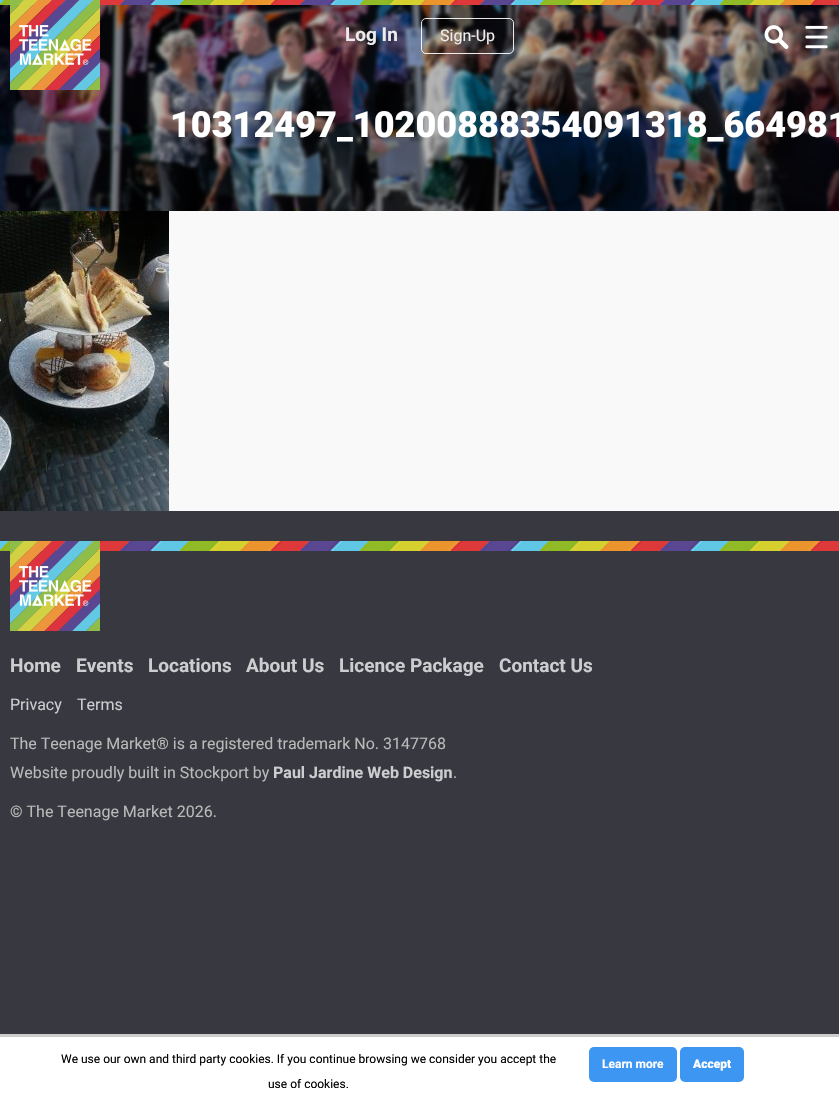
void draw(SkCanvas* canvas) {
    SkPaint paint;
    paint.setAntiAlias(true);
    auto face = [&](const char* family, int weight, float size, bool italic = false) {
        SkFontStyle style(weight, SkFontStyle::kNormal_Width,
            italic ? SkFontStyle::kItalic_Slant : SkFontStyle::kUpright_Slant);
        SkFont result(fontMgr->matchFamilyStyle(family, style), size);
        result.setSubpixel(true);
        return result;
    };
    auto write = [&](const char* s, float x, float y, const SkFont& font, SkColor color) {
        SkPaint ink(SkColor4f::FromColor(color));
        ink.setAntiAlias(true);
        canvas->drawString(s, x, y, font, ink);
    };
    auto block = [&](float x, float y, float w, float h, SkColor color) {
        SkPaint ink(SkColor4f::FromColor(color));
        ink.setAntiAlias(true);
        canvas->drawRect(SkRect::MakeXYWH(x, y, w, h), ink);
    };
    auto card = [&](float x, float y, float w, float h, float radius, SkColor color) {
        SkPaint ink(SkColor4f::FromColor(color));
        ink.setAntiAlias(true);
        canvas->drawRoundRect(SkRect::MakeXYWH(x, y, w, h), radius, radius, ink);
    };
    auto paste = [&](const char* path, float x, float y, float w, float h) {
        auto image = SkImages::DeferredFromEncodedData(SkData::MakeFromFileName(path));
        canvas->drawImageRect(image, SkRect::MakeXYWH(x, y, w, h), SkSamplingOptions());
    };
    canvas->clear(SkColorSetRGB(56, 57, 64));
    paste("pic1.png", 0, 0, 839, 5);
    paste("pic5.png", 0, 5, 839, 206);
    paste("pic2.png", 10, 0, 90, 90);
    auto kFont1 = face("Roboto", 700, 19);
    write("Log In", 345, 41, kFont1, SkColorSetRGB(236, 235, 237));
    paint.setStyle(SkPaint::kStroke_Style);
    paint.setStrokeWidth(1);
    paint.setColor(SkColorSetARGB(230, 255, 255, 255));
    canvas->drawRoundRect(SkRect::MakeXYWH(421.5f, 18.5f, 92, 35), 4.5f, 4.5f, paint);
    auto kFont2 = face("Roboto", 400, 16);
    write("Sign-Up", 440, 41, kFont2, SkColorSetRGB(236, 235, 237));
    paste("pic3.png", 764, 25, 25, 24);
    paste("pic4.png", 805, 25, 23, 24);
    block(169, 211, 670, 300, SkColorSetRGB(250, 249, 249));
    auto kFont3 = face("Roboto", 900, 36);
    write("10312497_10200888354091318_664981", 170, 137, kFont3, SK_ColorWHITE);
    paste("pic6.png", 0, 211, 169, 300);
    paste("pic7.png", 0, 541, 839, 10);
    paste("pic8.png", 10, 541, 90, 90);
    write("Home", 10, 672, kFont1, SkColorSetRGB(204, 205, 206));
    write("Events", 76, 672, kFont1, SkColorSetRGB(204, 205, 206));
    write("Locations", 148, 672, kFont1, SkColorSetRGB(204, 205, 206));
    write("About Us", 246, 672, kFont1, SkColorSetRGB(204, 205, 206));
    write("Licence Package", 339, 672, kFont1, SkColorSetRGB(204, 205, 206));
    write("Contact Us", 499, 672, kFont1, SkColorSetRGB(204, 205, 206));
    write("Privacy", 10, 710, kFont2, SkColorSetRGB(204, 205, 206));
    write("Terms", 77, 710, kFont2, SkColorSetRGB(204, 205, 206));
    write("The Teenage Market® is a registered trademark No. 3147768", 10, 749, kFont2, SkColorSetRGB(186, 185, 185));
    write("Website proudly built in Stockport by", 10, 778, kFont2, SkColorSetRGB(186, 185, 185));
    auto kFont4 = face("Roboto", 700, 16);
    write("Paul Jardine Web Design", 273, 778, kFont4, SkColorSetRGB(204, 205, 206));
    write(".", 453, 778, kFont2, SkColorSetRGB(186, 185, 185));
    write("© The Teenage Market 2026.", 10, 817, kFont2, SkColorSetRGB(186, 185, 185));
    block(0, 1037, 839, 70, SK_ColorWHITE);
    block(0, 1034, 839, 3, SkColorSetRGB(204, 204, 204));
    auto kFont5 = face("Roboto", 400, 12);
    write("We use our own and third party cookies. If you continue browsing we consider you accept the", 61, 1063, kFont5, SK_ColorBLACK);
    write("use of cookies.", 268, 1088, kFont5, SK_ColorBLACK);
    card(589, 1047, 88, 35, 5, SkColorSetRGB(61, 150, 241));
    auto kFont6 = face("Roboto", 700, 12);
    write("Learn more", 602, 1068, kFont6, SK_ColorWHITE);
    card(680, 1047, 64, 35, 5, SkColorSetRGB(61, 150, 241));
    auto kFont7 = face("Roboto", 900, 12);
    write("Accept", 693, 1068, kFont7, SK_ColorWHITE);
}
